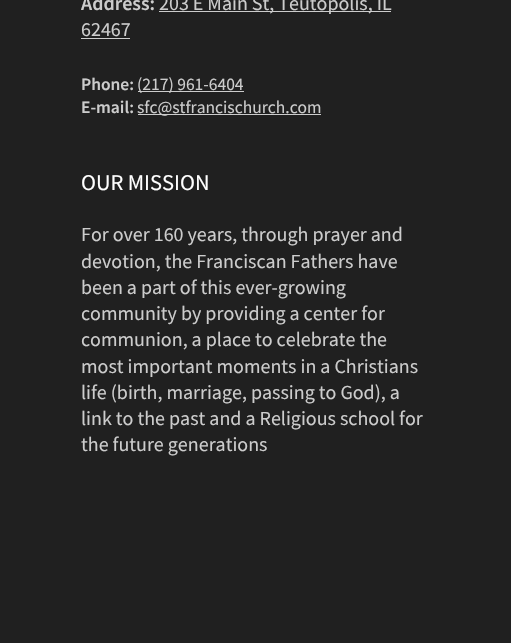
void draw(SkCanvas* canvas) {
    SkPaint paint;
    paint.setAntiAlias(true);
    auto face = [&](const char* family, int weight, float size, bool italic = false) {
        SkFontStyle style(weight, SkFontStyle::kNormal_Width,
            italic ? SkFontStyle::kItalic_Slant : SkFontStyle::kUpright_Slant);
        SkFont result(fontMgr->matchFamilyStyle(family, style), size);
        result.setSubpixel(true);
        return result;
    };
    auto write = [&](const char* s, float x, float y, const SkFont& font, SkColor color) {
        SkPaint ink(SkColor4f::FromColor(color));
        ink.setAntiAlias(true);
        canvas->drawString(s, x, y, font, ink);
    };
    auto block = [&](float x, float y, float w, float h, SkColor color) {
        SkPaint ink(SkColor4f::FromColor(color));
        ink.setAntiAlias(true);
        canvas->drawRect(SkRect::MakeXYWH(x, y, w, h), ink);
    };
    canvas->clear(SkColorSetRGB(32, 32, 32));
    auto kFont1 = face("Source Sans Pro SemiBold", 600, 20);
    write("Address:", 81, 10, kFont1, SkColorSetRGB(204, 204, 204));
    block(159, 11, 232, 1, SkColorSetRGB(204, 204, 204));
    auto kFont2 = face("Source Sans Pro", 400, 20);
    write("203 E Main St, Teutopolis, IL", 159, 10, kFont2, SkColorSetRGB(204, 204, 204));
    write("62467", 81, 36, kFont2, SkColorSetRGB(204, 204, 204));
    block(81, 38, 49, 1, SkColorSetRGB(204, 204, 204));
    auto kFont3 = face("Source Sans Pro SemiBold", 600, 17.5f);
    write("Phone:", 81, 90, kFont3, SkColorSetRGB(204, 204, 204));
    block(138, 91, 106, 1, SkColorSetRGB(204, 204, 204));
    auto kFont4 = face("Source Sans Pro", 400, 17.5f);
    write("(217) 961-6404", 137, 90, kFont4, SkColorSetRGB(204, 204, 204));
    write("E-mail:", 81, 113, kFont3, SkColorSetRGB(204, 204, 204));
    block(138, 114, 183, 1, SkColorSetRGB(204, 204, 204));
    write("sfc@stfrancischurch.com", 137, 113, kFont4, SkColorSetRGB(204, 204, 204));
    auto kFont5 = face("Source Sans Pro", 400, 22.5f);
    write("OUR MISSION", 81, 190, kFont5, SK_ColorWHITE);
    write("For over 160 years, through prayer and", 81, 241, kFont2, SkColorSetRGB(204, 204, 204));
    write("devotion, the Franciscan Fathers have", 81, 268, kFont2, SkColorSetRGB(204, 204, 204));
    write("been a part of this ever-growing", 81, 294, kFont2, SkColorSetRGB(204, 204, 204));
    write("community by providing a center for", 81, 320, kFont2, SkColorSetRGB(204, 204, 204));
    write("communion, a place to celebrate the", 81, 346, kFont2, SkColorSetRGB(204, 204, 204));
    write("most important moments in a Christians", 81, 373, kFont2, SkColorSetRGB(204, 204, 204));
    write("life (birth, marriage, passing to God), a", 81, 399, kFont2, SkColorSetRGB(204, 204, 204));
    write("link to the past and a Religious school for", 81, 425, kFont2, SkColorSetRGB(204, 204, 204));
    write("the future generations", 81, 451, kFont2, SkColorSetRGB(204, 204, 204));
}
